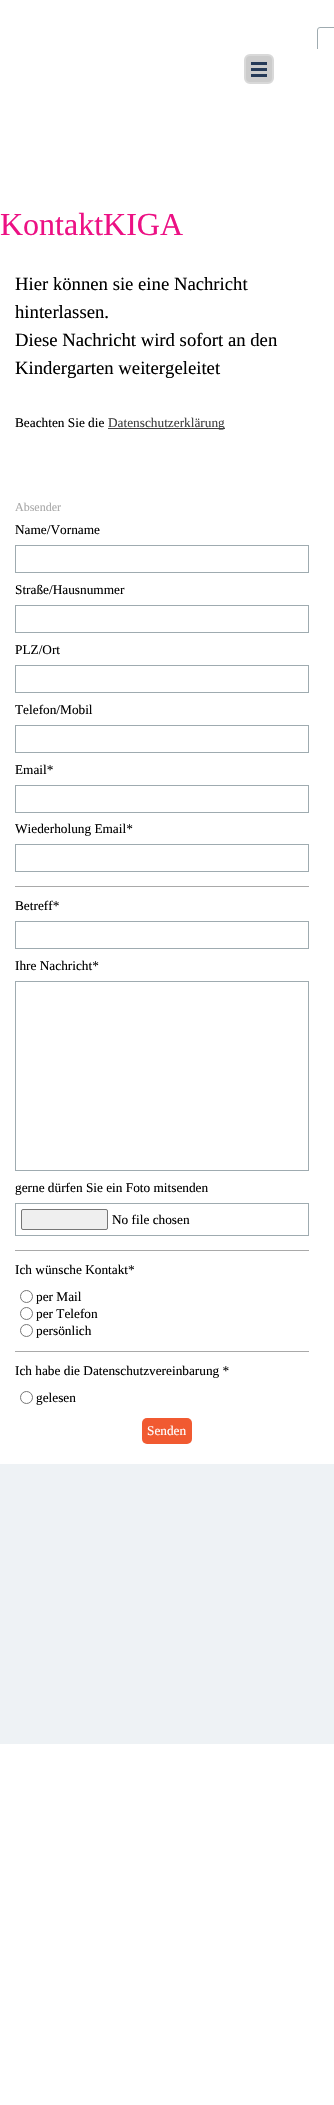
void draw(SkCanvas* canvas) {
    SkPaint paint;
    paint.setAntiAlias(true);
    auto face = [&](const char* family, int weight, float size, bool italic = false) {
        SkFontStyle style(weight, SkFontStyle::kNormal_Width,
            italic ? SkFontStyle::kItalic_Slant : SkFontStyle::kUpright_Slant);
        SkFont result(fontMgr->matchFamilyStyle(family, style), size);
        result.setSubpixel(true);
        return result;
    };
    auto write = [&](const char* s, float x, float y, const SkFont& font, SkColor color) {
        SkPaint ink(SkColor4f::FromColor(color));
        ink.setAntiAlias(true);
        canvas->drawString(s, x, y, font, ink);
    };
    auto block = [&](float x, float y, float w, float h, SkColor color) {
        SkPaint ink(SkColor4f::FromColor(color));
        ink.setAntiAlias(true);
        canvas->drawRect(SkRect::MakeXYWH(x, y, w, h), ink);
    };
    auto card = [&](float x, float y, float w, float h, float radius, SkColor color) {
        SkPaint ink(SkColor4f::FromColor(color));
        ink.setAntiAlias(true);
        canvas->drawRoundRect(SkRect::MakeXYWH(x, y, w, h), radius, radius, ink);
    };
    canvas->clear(SK_ColorWHITE);
    canvas->save();
    canvas->clipRect(SkRect::MakeXYWH(317, 27, 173, 22));
    paint.setStyle(SkPaint::kStroke_Style);
    paint.setStrokeWidth(1);
    paint.setColor(SkColorSetRGB(159, 171, 176));
    canvas->drawRoundRect(SkRect::MakeXYWH(317.5f, 27.5f, 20, 26), 2.5f, 2.5f, paint);
    canvas->restore();
    paint.setStyle(SkPaint::kFill_Style);
    paint.setColor(SkColorSetRGB(204, 204, 204));
    canvas->drawRoundRect(SkRect::MakeXYWH(245, 55, 28, 28), 5, 5, paint);
    paint.setStyle(SkPaint::kStroke_Style);
    paint.setStrokeWidth(2);
    paint.setColor(SkColorSetRGB(217, 217, 217));
    canvas->drawRoundRect(SkRect::MakeXYWH(245, 55, 28, 28), 5, 5, paint);
    block(251, 62, 16, 3, SkColorSetRGB(37, 58, 88));
    block(251, 68, 16, 3, SkColorSetRGB(37, 58, 88));
    block(251, 74, 16, 3, SkColorSetRGB(37, 58, 88));
    auto kFont1 = face("Liberation Serif", 400, 32);
    write("KontaktKIGA", 0, 235, kFont1, SkColorSetRGB(236, 17, 132));
    auto kFont2 = face("Liberation Serif", 400, 18.7f);
    write("Hier können sie eine Nachricht", 15, 290, kFont2, SK_ColorBLACK);
    write("hinterlassen.", 15, 318, kFont2, SK_ColorBLACK);
    write("Diese Nachricht wird sofort an den", 15, 346, kFont2, SK_ColorBLACK);
    write("Kindergarten weitergeleitet", 15, 374, kFont2, SK_ColorBLACK);
    auto kFont3 = face("Liberation Serif", 400, 13.3f);
    write("Beachten Sie die", 15, 427, kFont3, SK_ColorBLACK);
    block(108, 428, 117, 1, SkColorSetRGB(64, 64, 64));
    write("Datenschutzerklärung", 108, 427, kFont3, SkColorSetRGB(64, 64, 64));
    auto kFont4 = face("Liberation Serif", 400, 12);
    write("Absender", 15, 511, kFont4, SkColorSetRGB(169, 169, 169));
    write("Name/Vorname", 15, 534, kFont3, SK_ColorBLACK);
    paint.setStrokeWidth(1);
    paint.setColor(SkColorSetRGB(159, 171, 176));
    canvas->drawRect(SkRect::MakeXYWH(15.5f, 545.5f, 293, 27), paint);
    write("Straße/Hausnummer", 15, 594, kFont3, SK_ColorBLACK);
    canvas->drawRect(SkRect::MakeXYWH(15.5f, 605.5f, 293, 27), paint);
    write("PLZ/Ort", 15, 654, kFont3, SK_ColorBLACK);
    canvas->drawRect(SkRect::MakeXYWH(15.5f, 665.5f, 293, 27), paint);
    write("Telefon/Mobil", 15, 714, kFont3, SK_ColorBLACK);
    canvas->drawRect(SkRect::MakeXYWH(15.5f, 725.5f, 293, 27), paint);
    write("Email*", 15, 774, kFont3, SK_ColorBLACK);
    canvas->drawRect(SkRect::MakeXYWH(15.5f, 785.5f, 293, 27), paint);
    write("Wiederholung Email*", 15, 833, kFont3, SK_ColorBLACK);
    canvas->drawRect(SkRect::MakeXYWH(15.5f, 844.5f, 293, 27), paint);
    block(15, 886, 294, 1, SkColorSetRGB(169, 169, 169));
    write("Betreff*", 15, 910, kFont3, SK_ColorBLACK);
    canvas->drawRect(SkRect::MakeXYWH(15.5f, 921.5f, 293, 27), paint);
    write("Ihre Nachricht*", 15, 970, kFont3, SK_ColorBLACK);
    canvas->drawRect(SkRect::MakeXYWH(15.5f, 981.5f, 293, 189), paint);
    write("gerne dürfen Sie ein Foto mitsenden", 15, 1192, kFont3, SK_ColorBLACK);
    canvas->drawRect(SkRect::MakeXYWH(15.5f, 1203.5f, 293, 32), paint);
    paint.setStyle(SkPaint::kFill_Style);
    paint.setColor(SkColorSetRGB(239, 239, 239));
    canvas->drawRoundRect(SkRect::MakeXYWH(21.5f, 1209.5f, 86, 20), 1.5f, 1.5f, paint);
    paint.setStyle(SkPaint::kStroke_Style);
    paint.setColor(SkColorSetRGB(118, 118, 118));
    canvas->drawRoundRect(SkRect::MakeXYWH(21.5f, 1209.5f, 86, 20), 1.5f, 1.5f, paint);
    write("No file chosen", 112, 1224, kFont3, SK_ColorBLACK);
    block(15, 1250, 294, 1, SkColorSetRGB(169, 169, 169));
    write("Ich wünsche Kontakt*", 15, 1274, kFont3, SK_ColorBLACK);
    canvas->drawCircle(26.5f, 1296.5f, 6, paint);
    write("per Mail", 36, 1301, kFont3, SK_ColorBLACK);
    canvas->drawCircle(26.5f, 1313.5f, 6, paint);
    write("per Telefon", 36, 1318, kFont3, SK_ColorBLACK);
    canvas->drawCircle(26.5f, 1330.5f, 6, paint);
    write("persönlich", 36, 1335, kFont3, SK_ColorBLACK);
    block(15, 1351, 294, 1, SkColorSetRGB(169, 169, 169));
    write("Ich habe die Datenschutzvereinbarung *", 15, 1375, kFont3, SK_ColorBLACK);
    canvas->drawCircle(26.5f, 1397.5f, 6, paint);
    write("gelesen", 36, 1402, kFont3, SK_ColorBLACK);
    card(142, 1418, 50, 26, 5, SkColorSetRGB(241, 90, 49));
    write("Senden", 147, 1435, kFont3, SK_ColorWHITE);
    block(0, 1464, 334, 280, SkColorSetRGB(238, 242, 245));
}
